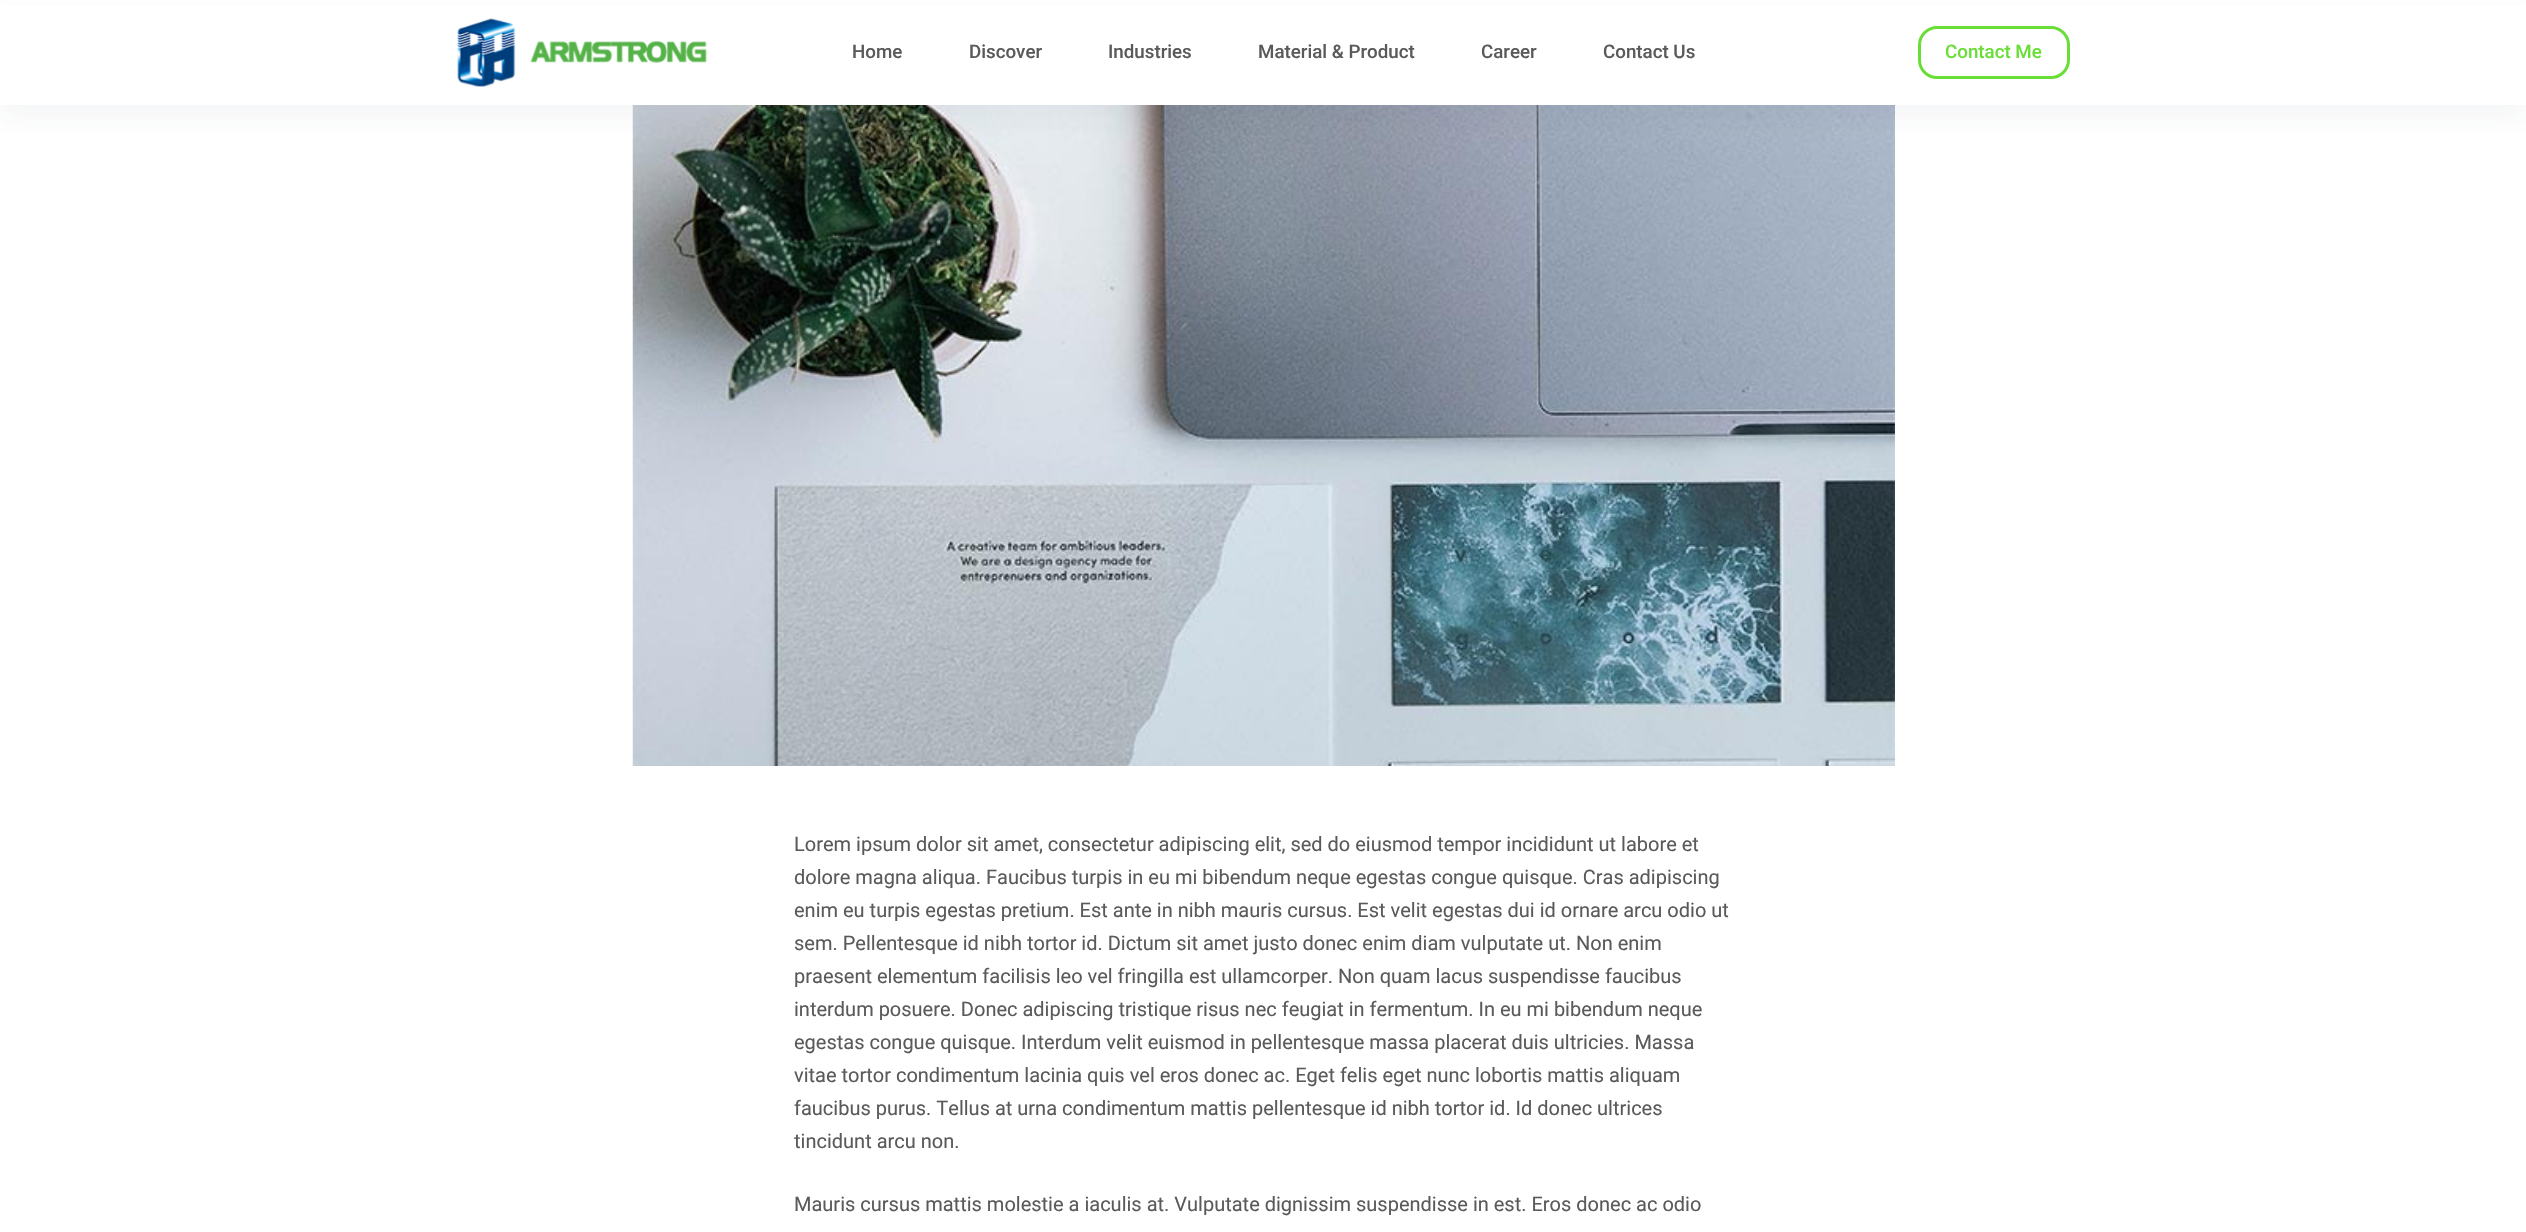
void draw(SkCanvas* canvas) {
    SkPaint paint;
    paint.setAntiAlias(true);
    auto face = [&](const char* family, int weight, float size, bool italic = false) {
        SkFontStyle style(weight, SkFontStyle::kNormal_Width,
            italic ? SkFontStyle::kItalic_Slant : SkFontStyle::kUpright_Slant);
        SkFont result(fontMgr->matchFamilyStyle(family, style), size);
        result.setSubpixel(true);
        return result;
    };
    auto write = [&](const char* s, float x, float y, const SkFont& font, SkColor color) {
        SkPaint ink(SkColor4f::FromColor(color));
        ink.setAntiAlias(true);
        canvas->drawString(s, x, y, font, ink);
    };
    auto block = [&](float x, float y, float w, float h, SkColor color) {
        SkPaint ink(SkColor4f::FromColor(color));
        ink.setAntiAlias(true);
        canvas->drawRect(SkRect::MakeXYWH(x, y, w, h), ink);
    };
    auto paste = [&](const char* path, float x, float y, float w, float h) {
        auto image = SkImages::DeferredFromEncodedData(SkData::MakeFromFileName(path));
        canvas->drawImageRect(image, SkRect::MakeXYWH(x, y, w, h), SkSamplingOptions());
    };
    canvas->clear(SK_ColorWHITE);
    paste("pic2.png", 632, 105, 1263, 661);
    paint.setColor(SkColorSetARGB(13, 44, 62, 80));
    paint.setMaskFilter(SkMaskFilter::MakeBlur(kNormal_SkBlurStyle, 12.5f));
    canvas->drawRect(SkRect::MakeXYWH(0, 13, 2526, 105), paint);
    paint.setMaskFilter(nullptr);
    block(0, 5, 2526, 100, SK_ColorWHITE);
    paste("pic1.png", 457, 18, 250, 69);
    auto kFont1 = face("Roboto", 500, 18.75f);
    write("Home", 852, 58, kFont1, SkColorSetRGB(90, 90, 90));
    write("Discover", 969, 58, kFont1, SkColorSetRGB(90, 90, 90));
    write("Industries", 1108, 58, kFont1, SkColorSetRGB(90, 90, 90));
    write("Material & Product", 1258, 58, kFont1, SkColorSetRGB(90, 90, 90));
    write("Career", 1481, 58, kFont1, SkColorSetRGB(90, 90, 90));
    write("Contact Us", 1603, 58, kFont1, SkColorSetRGB(90, 90, 90));
    paint.setStyle(SkPaint::kStroke_Style);
    paint.setStrokeWidth(3);
    paint.setColor(SkColorSetRGB(105, 222, 55));
    canvas->drawRoundRect(SkRect::MakeXYWH(1919.5f, 27.5f, 149, 50), 17.5f, 17.5f, paint);
    write("Contact Me", 1945, 58, kFont1, SkColorSetRGB(105, 222, 55));
    auto kFont2 = face("Roboto", 400, 20);
    write("Lorem ipsum dolor sit amet, consectetur adipiscing elit, sed do eiusmod tempor incididunt ut labore et", 794, 851, kFont2, SkColorSetRGB(90, 90, 90));
    write("dolore magna aliqua. Faucibus turpis in eu mi bibendum neque egestas congue quisque. Cras adipiscing", 794, 884, kFont2, SkColorSetRGB(90, 90, 90));
    write("enim eu turpis egestas pretium. Est ante in nibh mauris cursus. Est velit egestas dui id ornare arcu odio ut", 794, 917, kFont2, SkColorSetRGB(90, 90, 90));
    write("sem. Pellentesque id nibh tortor id. Dictum sit amet justo donec enim diam vulputate ut. Non enim", 794, 950, kFont2, SkColorSetRGB(90, 90, 90));
    write("praesent elementum facilisis leo vel fringilla est ullamcorper. Non quam lacus suspendisse faucibus", 794, 983, kFont2, SkColorSetRGB(90, 90, 90));
    write("interdum posuere. Donec adipiscing tristique risus nec feugiat in fermentum. In eu mi bibendum neque", 794, 1016, kFont2, SkColorSetRGB(90, 90, 90));
    write("egestas congue quisque. Interdum velit euismod in pellentesque massa placerat duis ultricies. Massa", 794, 1049, kFont2, SkColorSetRGB(90, 90, 90));
    write("vitae tortor condimentum lacinia quis vel eros donec ac. Eget felis eget nunc lobortis mattis aliquam", 794, 1082, kFont2, SkColorSetRGB(90, 90, 90));
    write("faucibus purus. Tellus at urna condimentum mattis pellentesque id nibh tortor id. Id donec ultrices", 794, 1115, kFont2, SkColorSetRGB(90, 90, 90));
    write("tincidunt arcu non.", 794, 1148, kFont2, SkColorSetRGB(90, 90, 90));
    write("Mauris cursus mattis molestie a iaculis at. Vulputate dignissim suspendisse in est. Eros donec ac odio", 794, 1211, kFont2, SkColorSetRGB(90, 90, 90));
}
